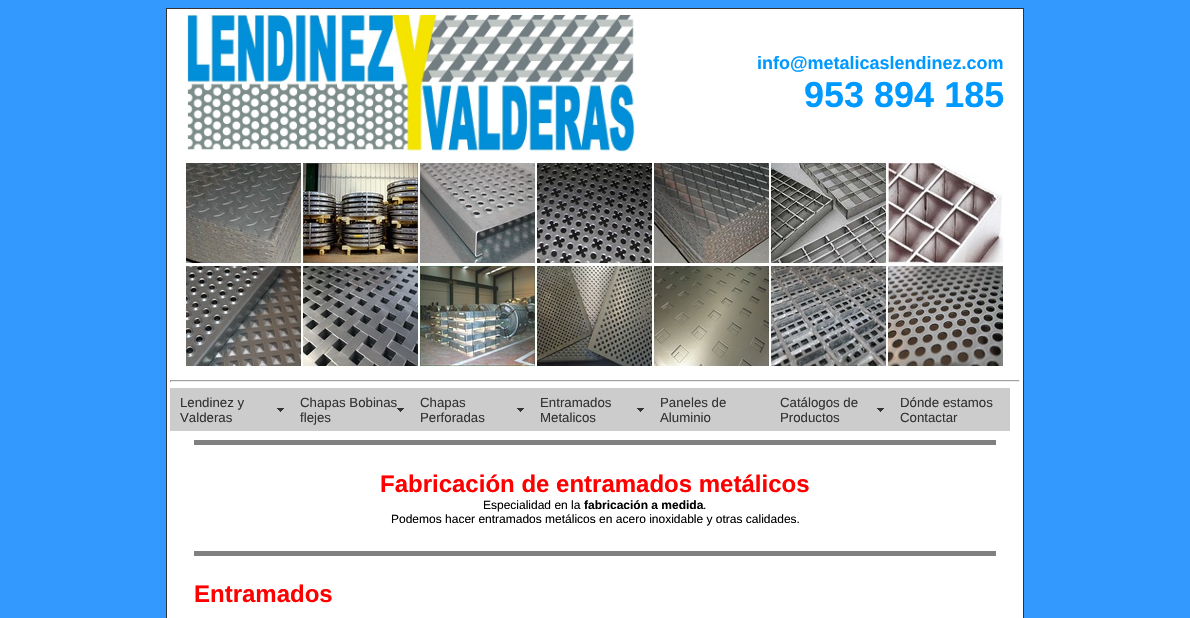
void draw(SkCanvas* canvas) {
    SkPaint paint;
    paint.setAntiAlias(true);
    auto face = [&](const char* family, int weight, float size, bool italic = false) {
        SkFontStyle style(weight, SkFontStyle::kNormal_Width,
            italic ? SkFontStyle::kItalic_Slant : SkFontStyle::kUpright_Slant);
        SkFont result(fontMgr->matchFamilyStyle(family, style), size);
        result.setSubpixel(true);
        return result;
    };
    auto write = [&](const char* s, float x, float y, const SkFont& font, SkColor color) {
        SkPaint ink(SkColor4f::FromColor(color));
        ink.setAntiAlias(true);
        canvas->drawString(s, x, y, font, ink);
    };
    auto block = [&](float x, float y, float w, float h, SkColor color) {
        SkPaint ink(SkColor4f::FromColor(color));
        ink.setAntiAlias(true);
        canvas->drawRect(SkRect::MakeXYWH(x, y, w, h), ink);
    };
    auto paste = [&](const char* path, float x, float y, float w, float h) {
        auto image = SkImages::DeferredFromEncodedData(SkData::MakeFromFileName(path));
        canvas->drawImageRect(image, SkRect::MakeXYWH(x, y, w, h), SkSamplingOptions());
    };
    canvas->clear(SkColorSetRGB(51, 153, 255));
    paint.setColor(SK_ColorWHITE);
    canvas->drawRect(SkRect::MakeXYWH(166.5f, 8.5f, 857, 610), paint);
    paint.setStyle(SkPaint::kStroke_Style);
    paint.setStrokeWidth(1);
    paint.setColor(SkColorSetRGB(51, 51, 51));
    canvas->drawRect(SkRect::MakeXYWH(166.5f, 8.5f, 857, 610), paint);
    paste("pic1.png", 187, 15, 448, 137);
    auto kFont1 = face("Liberation Sans", 700, 18);
    write("info@metalicaslendinez.com", 757, 69, kFont1, SkColorSetRGB(0, 153, 255));
    auto kFont2 = face("Liberation Sans", 700, 36);
    write("953 894 185", 804, 107, kFont2, SkColorSetRGB(0, 153, 255));
    paste("pic2.png", 182, 159, 824, 209);
    block(170, 380, 850, 1, SkColorSetRGB(159, 159, 159));
    block(1019, 380, 1, 2, SkColorSetRGB(238, 238, 238));
    block(170, 381, 850, 1, SkColorSetRGB(238, 238, 238));
    block(170, 380, 1, 2, SkColorSetRGB(159, 159, 159));
    block(170, 388, 840, 43, SkColorSetRGB(204, 204, 204));
    paste("pic3.png", 277, 408, 7, 4);
    auto kFont3 = face("Liberation Sans", 400, 13.25f);
    write("Lendinez y", 180, 407, kFont3, SkColorSetRGB(51, 51, 51));
    write("Valderas", 180, 422, kFont3, SkColorSetRGB(51, 51, 51));
    paste("pic3.png", 397, 408, 7, 4);
    write("Chapas Bobinas", 300, 407, kFont3, SkColorSetRGB(51, 51, 51));
    write("flejes", 300, 422, kFont3, SkColorSetRGB(51, 51, 51));
    paste("pic3.png", 517, 408, 7, 4);
    write("Chapas", 420, 407, kFont3, SkColorSetRGB(51, 51, 51));
    write("Perforadas", 420, 422, kFont3, SkColorSetRGB(51, 51, 51));
    paste("pic3.png", 637, 408, 7, 4);
    write("Entramados", 540, 407, kFont3, SkColorSetRGB(51, 51, 51));
    write("Metalicos", 540, 422, kFont3, SkColorSetRGB(51, 51, 51));
    write("Paneles de", 660, 407, kFont3, SkColorSetRGB(51, 51, 51));
    write("Aluminio", 660, 422, kFont3, SkColorSetRGB(51, 51, 51));
    paste("pic3.png", 877, 408, 7, 4);
    write("Catálogos de", 780, 407, kFont3, SkColorSetRGB(51, 51, 51));
    write("Productos", 780, 422, kFont3, SkColorSetRGB(51, 51, 51));
    write("Dónde estamos", 900, 407, kFont3, SkColorSetRGB(51, 51, 51));
    write("Contactar", 900, 422, kFont3, SkColorSetRGB(51, 51, 51));
    block(194, 440, 802, 5, SkColorSetRGB(128, 128, 128));
    auto kFont4 = face("Liberation Sans", 700, 24);
    write("Fabricación de entramados metálicos", 380, 492, kFont4, SkColorSetRGB(255, 0, 0));
    auto kFont5 = face("Liberation Sans", 400, 12);
    write("Especialidad en la", 483, 509, kFont5, SK_ColorBLACK);
    auto kFont6 = face("Liberation Sans", 700, 12);
    write("fabricación a medida", 584, 509, kFont6, SK_ColorBLACK);
    write(".", 703, 509, kFont5, SK_ColorBLACK);
    write("Podemos hacer entramados metálicos en acero inoxidable y otras calidades.", 391, 523, kFont5, SK_ColorBLACK);
    block(194, 551, 802, 5, SkColorSetRGB(128, 128, 128));
    write("Entramados", 194, 602, kFont4, SkColorSetRGB(255, 0, 0));
}
